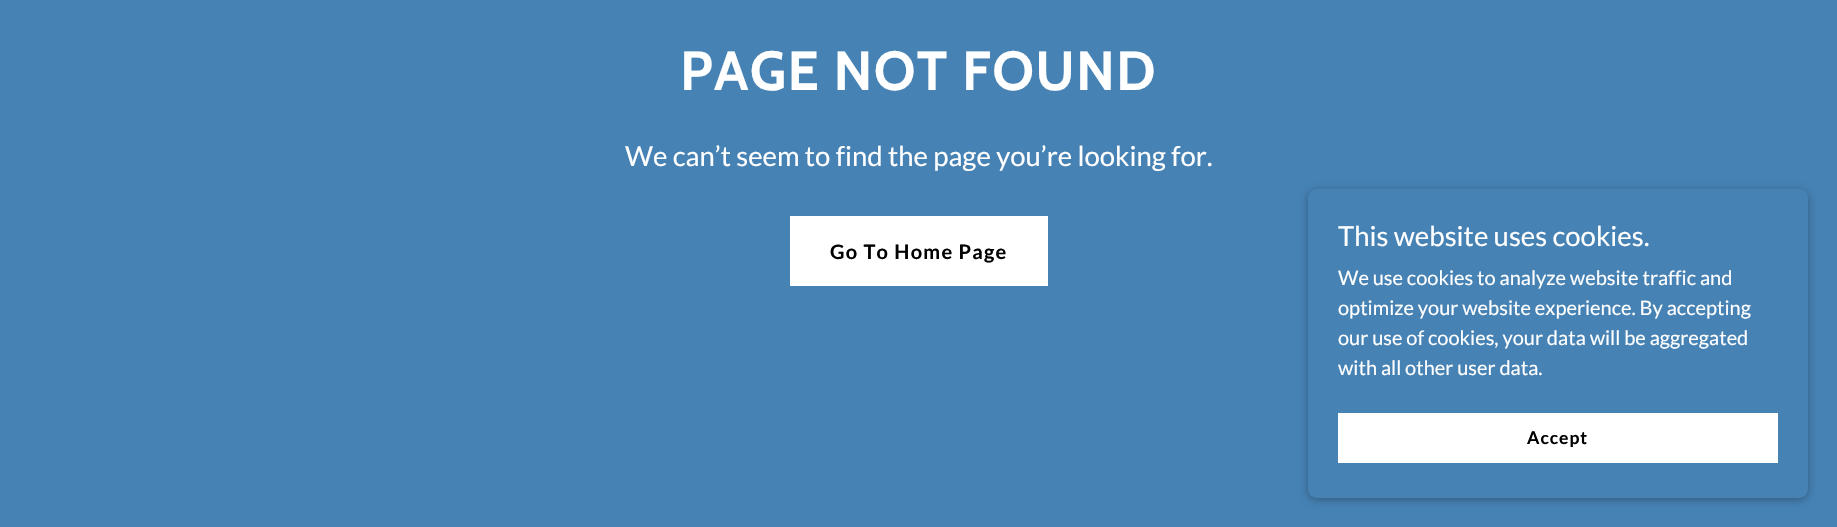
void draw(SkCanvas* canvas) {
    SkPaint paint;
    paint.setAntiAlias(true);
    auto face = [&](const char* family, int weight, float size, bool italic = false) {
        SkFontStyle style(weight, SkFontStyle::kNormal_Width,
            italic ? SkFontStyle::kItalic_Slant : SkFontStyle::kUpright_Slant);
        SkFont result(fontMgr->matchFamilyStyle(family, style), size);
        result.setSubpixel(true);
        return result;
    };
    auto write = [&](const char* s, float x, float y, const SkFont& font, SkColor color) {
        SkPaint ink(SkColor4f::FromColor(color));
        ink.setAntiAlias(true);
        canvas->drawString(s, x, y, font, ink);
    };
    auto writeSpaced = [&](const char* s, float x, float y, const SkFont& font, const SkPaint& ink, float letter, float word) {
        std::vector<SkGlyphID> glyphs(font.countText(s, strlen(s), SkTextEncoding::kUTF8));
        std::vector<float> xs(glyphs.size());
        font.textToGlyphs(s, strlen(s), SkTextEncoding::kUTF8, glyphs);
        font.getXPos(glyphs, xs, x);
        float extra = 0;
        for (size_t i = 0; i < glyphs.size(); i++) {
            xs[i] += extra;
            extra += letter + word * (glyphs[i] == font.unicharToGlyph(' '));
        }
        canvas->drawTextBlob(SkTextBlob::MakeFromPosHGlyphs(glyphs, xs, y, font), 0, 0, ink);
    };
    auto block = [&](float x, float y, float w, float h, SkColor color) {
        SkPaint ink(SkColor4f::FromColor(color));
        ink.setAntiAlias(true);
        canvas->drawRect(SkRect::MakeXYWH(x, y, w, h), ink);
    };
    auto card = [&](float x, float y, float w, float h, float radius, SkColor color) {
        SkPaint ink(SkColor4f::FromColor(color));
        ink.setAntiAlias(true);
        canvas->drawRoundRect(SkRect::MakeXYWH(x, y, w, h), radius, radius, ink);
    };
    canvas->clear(SkColorSetRGB(70, 130, 180));
    auto kFont1 = face("Cabin", 700, 55);
    paint.setColor(SK_ColorWHITE);
    writeSpaced("PAGE NOT FOUND", 680, 90, kFont1, paint, 1.25f, 0);
    auto kFont2 = face("Lato", 400, 27.5f);
    write("We can’t seem to find the page you’re looking for.", 625, 166, kFont2, SK_ColorWHITE);
    block(790, 216, 258, 70, SK_ColorWHITE);
    auto kFont3 = face("Lato", 700, 20);
    paint.setColor(SK_ColorBLACK);
    writeSpaced("Go To Home Page", 830, 259, kFont3, paint, 1.25f, 0);
    paint.setColor(SkColorSetARGB(77, 0, 0, 0));
    paint.setMaskFilter(SkMaskFilter::MakeBlur(kNormal_SkBlurStyle, 4));
    canvas->drawRoundRect(SkRect::MakeXYWH(1308, 191, 500, 309), 9, 9, paint);
    paint.setMaskFilter(nullptr);
    card(1308, 189, 500, 309, 9, SkColorSetRGB(70, 130, 180));
    write("This website uses cookies.", 1338, 246, kFont2, SK_ColorWHITE);
    auto kFont4 = face("Lato", 400, 20);
    write("We use cookies to analyze website traffic and", 1338, 285, kFont4, SK_ColorWHITE);
    write("optimize your website experience. By accepting", 1338, 315, kFont4, SK_ColorWHITE);
    write("our use of cookies, your data will be aggregated", 1338, 345, kFont4, SK_ColorWHITE);
    write("with all other user data.", 1338, 375, kFont4, SK_ColorWHITE);
    block(1338, 413, 440, 50, SK_ColorWHITE);
    auto kFont5 = face("Lato", 700, 17.5f);
    paint.setColor(SK_ColorBLACK);
    writeSpaced("Accept", 1527, 444, kFont5, paint, 1, 0);
}
